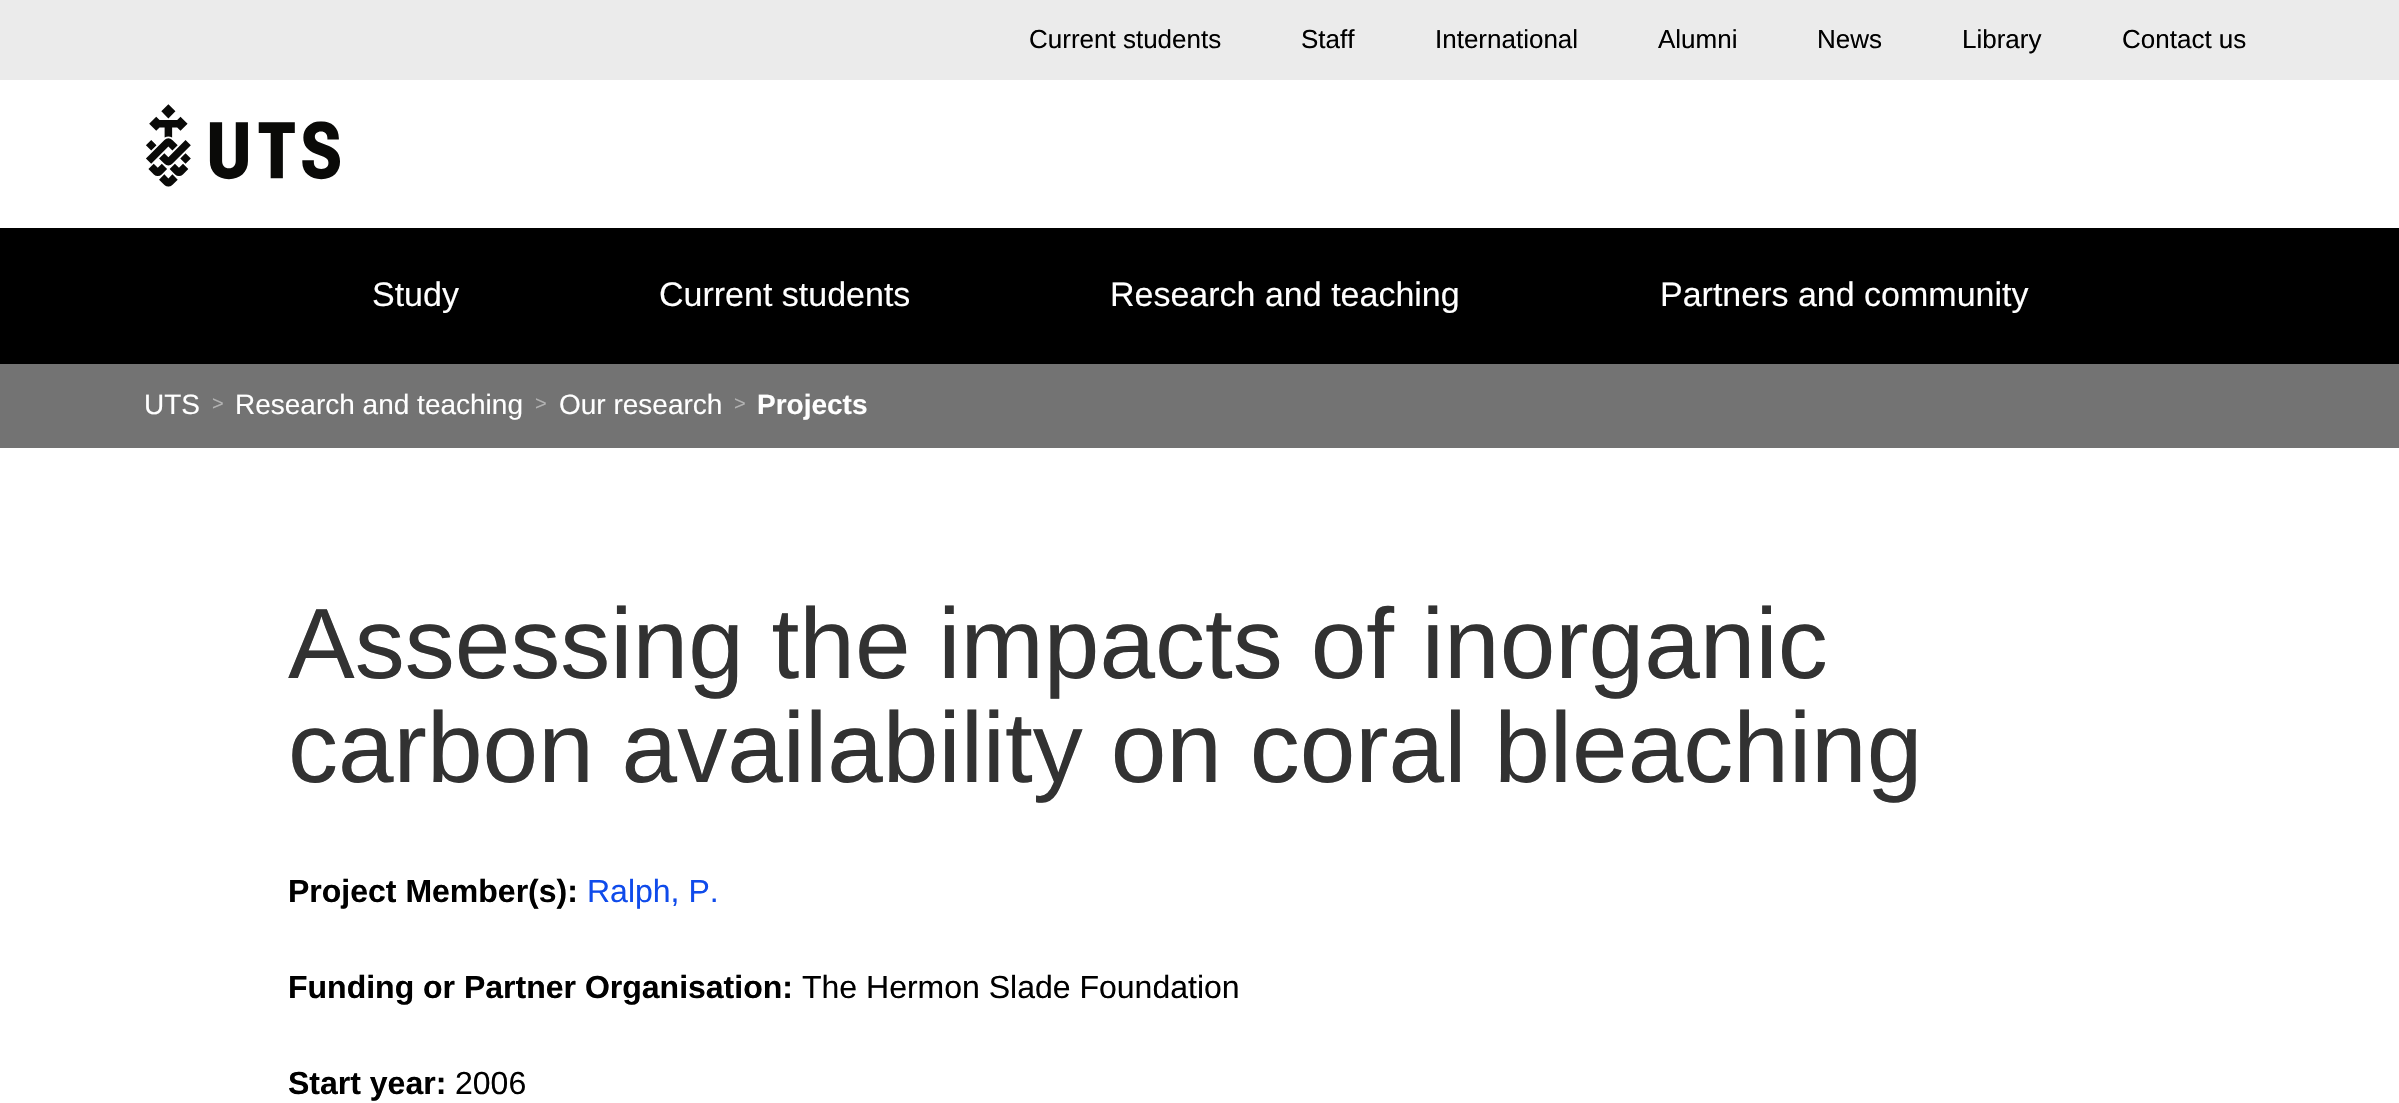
void draw(SkCanvas* canvas) {
    SkPaint paint;
    paint.setAntiAlias(true);
    auto face = [&](const char* family, int weight, float size, bool italic = false) {
        SkFontStyle style(weight, SkFontStyle::kNormal_Width,
            italic ? SkFontStyle::kItalic_Slant : SkFontStyle::kUpright_Slant);
        SkFont result(fontMgr->matchFamilyStyle(family, style), size);
        result.setSubpixel(true);
        return result;
    };
    auto write = [&](const char* s, float x, float y, const SkFont& font, SkColor color) {
        SkPaint ink(SkColor4f::FromColor(color));
        ink.setAntiAlias(true);
        canvas->drawString(s, x, y, font, ink);
    };
    auto block = [&](float x, float y, float w, float h, SkColor color) {
        SkPaint ink(SkColor4f::FromColor(color));
        ink.setAntiAlias(true);
        canvas->drawRect(SkRect::MakeXYWH(x, y, w, h), ink);
    };
    auto paste = [&](const char* path, float x, float y, float w, float h) {
        auto image = SkImages::DeferredFromEncodedData(SkData::MakeFromFileName(path));
        canvas->drawImageRect(image, SkRect::MakeXYWH(x, y, w, h), SkSamplingOptions());
    };
    canvas->clear(SK_ColorWHITE);
    block(0, 0, 2399, 80, SkColorSetRGB(235, 235, 235));
    auto kFont1 = face("Liberation Sans", 400, 26);
    write("Current students", 1029, 48, kFont1, SK_ColorBLACK);
    write("Staff", 1301, 48, kFont1, SK_ColorBLACK);
    write("International", 1435, 48, kFont1, SK_ColorBLACK);
    write("Alumni", 1658, 48, kFont1, SK_ColorBLACK);
    write("News", 1817, 48, kFont1, SK_ColorBLACK);
    write("Library", 1962, 48, kFont1, SK_ColorBLACK);
    write("Contact us", 2122, 48, kFont1, SK_ColorBLACK);
    paste("pic1.png", 146, 104, 194, 83);
    block(0, 228, 2399, 136, SK_ColorBLACK);
    auto kFont2 = face("Liberation Sans", 400, 34);
    write("Study", 372, 306, kFont2, SK_ColorWHITE);
    write("Current students", 659, 306, kFont2, SK_ColorWHITE);
    write("Research and teaching", 1110, 306, kFont2, SK_ColorWHITE);
    write("Partners and community", 1660, 306, kFont2, SK_ColorWHITE);
    block(0, 364, 2399, 84, SkColorSetRGB(115, 115, 115));
    auto kFont3 = face("Liberation Sans", 400, 28);
    write("UTS", 144, 414, kFont3, SK_ColorWHITE);
    auto kFont4 = face("Liberation Sans", 400, 20);
    write(">", 212, 410, kFont4, SkColorSetRGB(178, 178, 178));
    write("Research and teaching", 235, 414, kFont3, SK_ColorWHITE);
    write(">", 535, 410, kFont4, SkColorSetRGB(178, 178, 178));
    write("Our research", 559, 414, kFont3, SK_ColorWHITE);
    write(">", 734, 410, kFont4, SkColorSetRGB(178, 178, 178));
    auto kFont5 = face("Liberation Sans", 700, 28);
    write("Projects", 757, 414, kFont5, SK_ColorWHITE);
    auto kFont6 = face("Liberation Sans", 400, 100);
    write("Assessing the impacts of inorganic", 288, 678, kFont6, SkColorSetRGB(50, 50, 50));
    write("carbon availability on coral bleaching", 288, 782, kFont6, SkColorSetRGB(50, 50, 50));
    auto kFont7 = face("Liberation Sans", 700, 32);
    write("Project Member(s):", 288, 902, kFont7, SK_ColorBLACK);
    auto kFont8 = face("Liberation Sans", 400, 32);
    write("Ralph, P.", 587, 902, kFont8, SkColorSetRGB(15, 75, 235));
    write("Funding or Partner Organisation:", 288, 998, kFont7, SK_ColorBLACK);
    write("The Hermon Slade Foundation", 802, 998, kFont8, SK_ColorBLACK);
    write("Start year:", 288, 1094, kFont7, SK_ColorBLACK);
    write("2006", 455, 1094, kFont8, SK_ColorBLACK);
}
